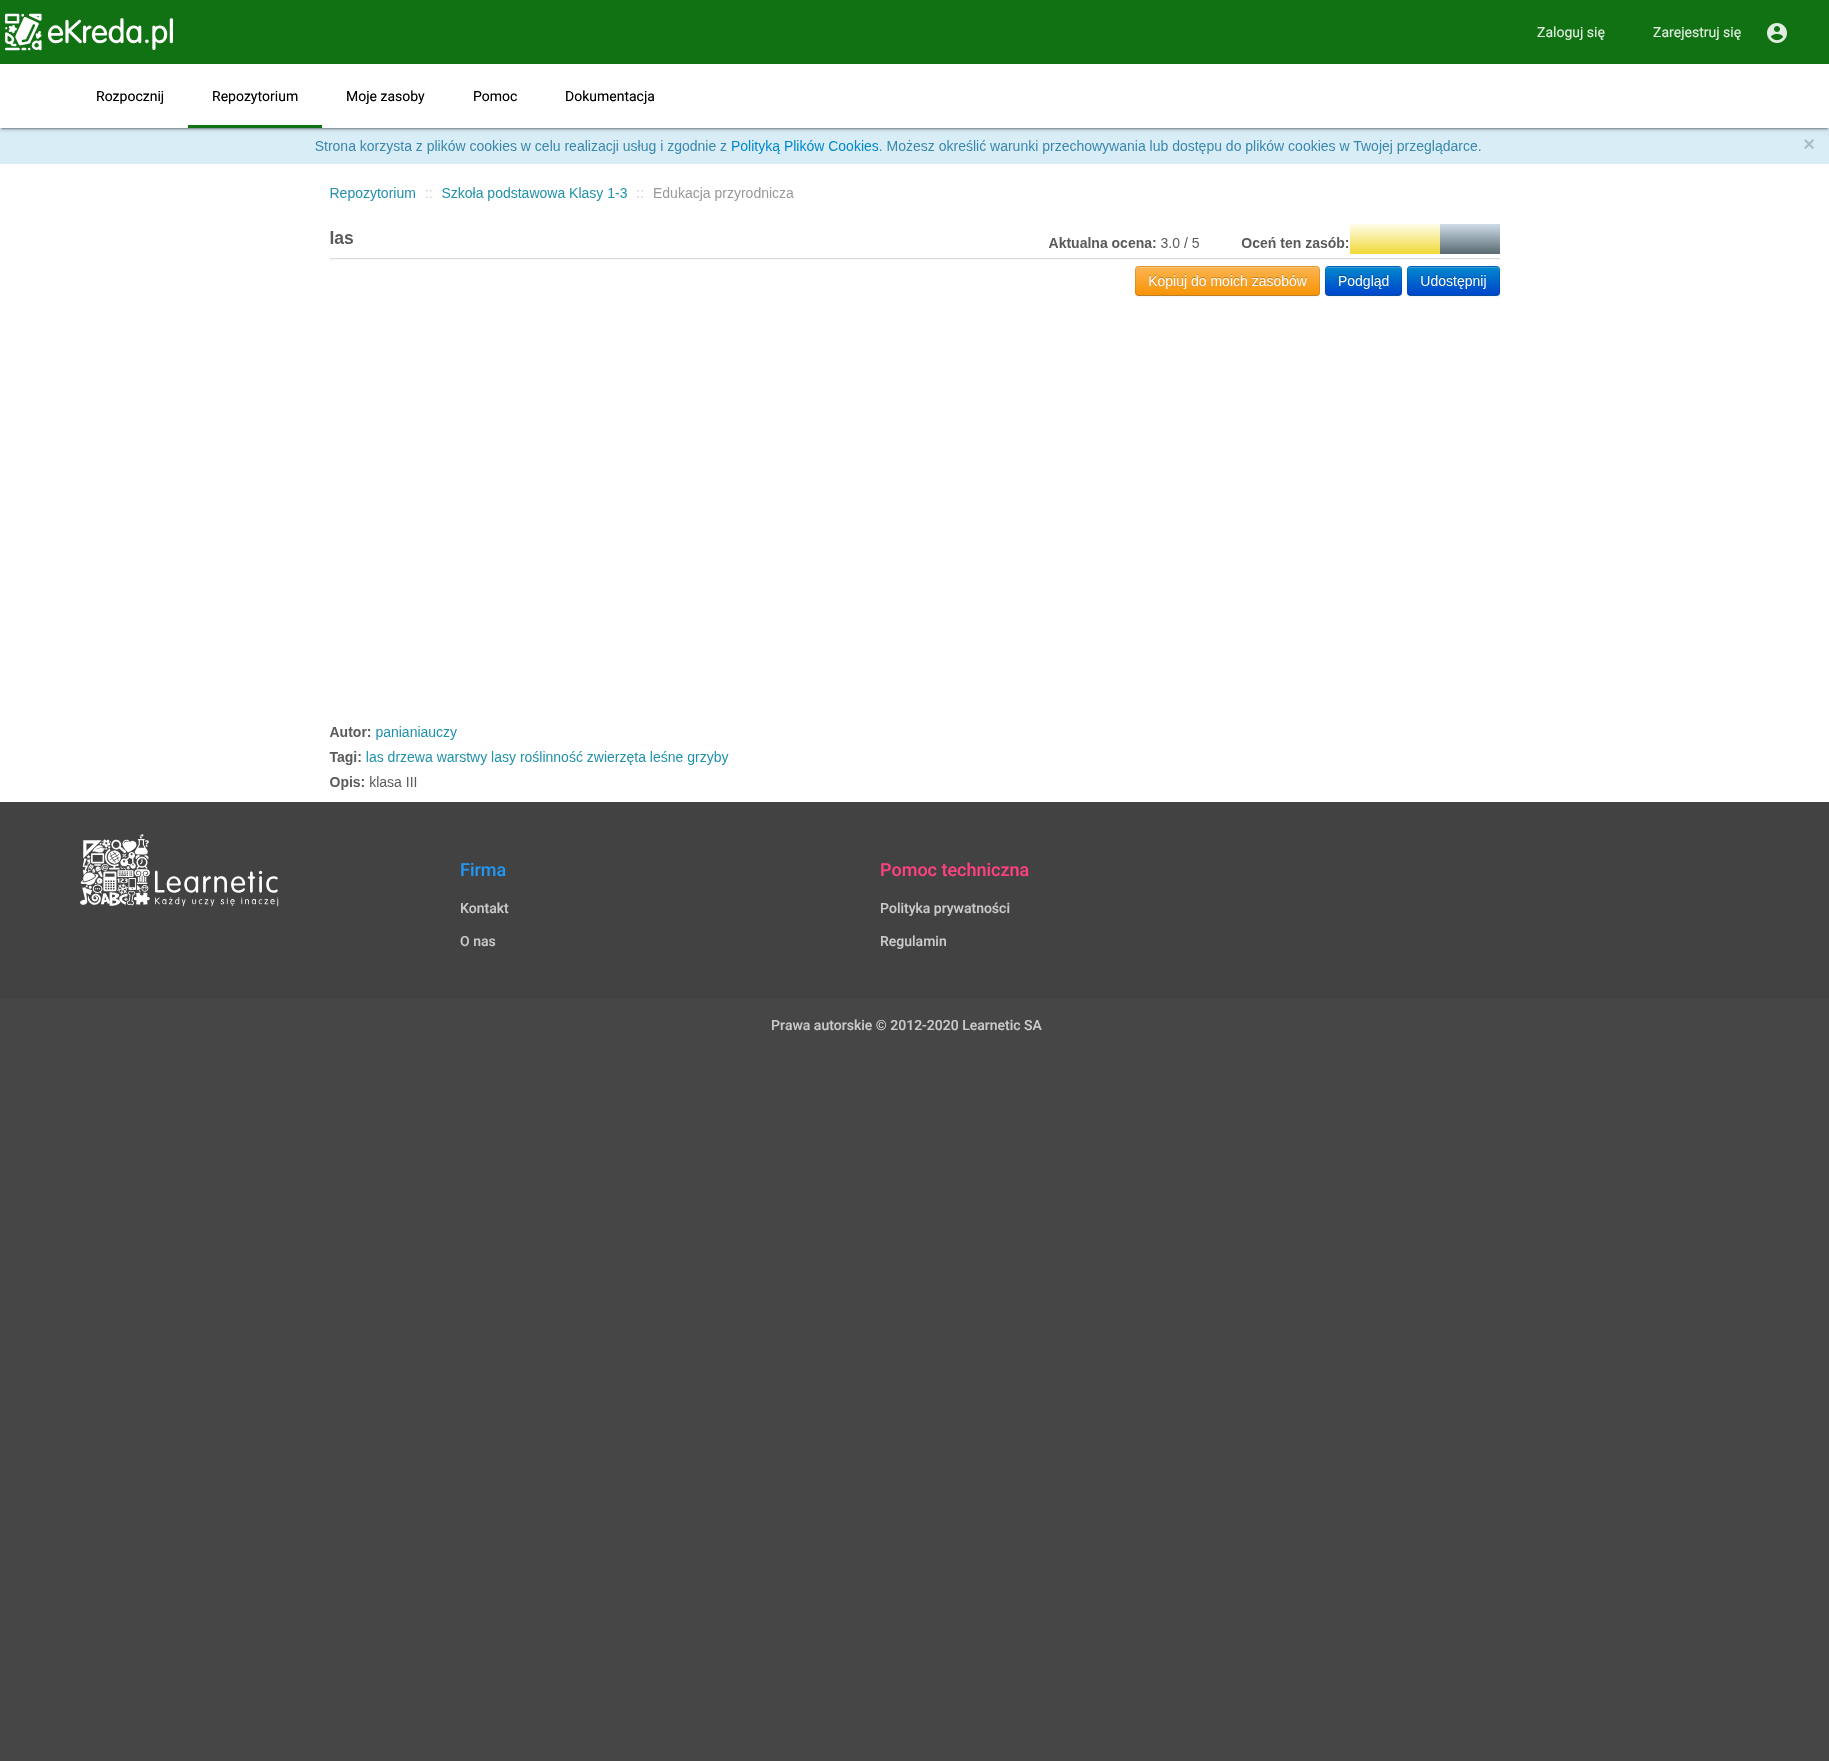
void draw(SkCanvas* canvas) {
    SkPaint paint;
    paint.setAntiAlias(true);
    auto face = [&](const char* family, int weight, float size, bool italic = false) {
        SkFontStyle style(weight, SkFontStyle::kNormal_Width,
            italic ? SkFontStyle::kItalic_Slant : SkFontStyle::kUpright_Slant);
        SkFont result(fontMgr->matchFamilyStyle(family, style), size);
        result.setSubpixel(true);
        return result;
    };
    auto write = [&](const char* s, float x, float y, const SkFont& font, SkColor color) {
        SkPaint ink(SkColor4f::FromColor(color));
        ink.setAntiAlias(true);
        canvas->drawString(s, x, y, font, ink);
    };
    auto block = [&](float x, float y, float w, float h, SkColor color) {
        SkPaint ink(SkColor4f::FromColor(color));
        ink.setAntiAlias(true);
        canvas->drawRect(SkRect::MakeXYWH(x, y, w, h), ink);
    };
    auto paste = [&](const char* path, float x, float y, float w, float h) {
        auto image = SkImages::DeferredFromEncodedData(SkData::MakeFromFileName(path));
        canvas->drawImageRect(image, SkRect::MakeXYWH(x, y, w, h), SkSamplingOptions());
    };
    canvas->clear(SkColorSetRGB(70, 70, 70));
    paste("pic3.png", 0, 128, 1829, 674);
    paint.setColor(SkColorSetARGB(31, 0, 0, 0));
    paint.setMaskFilter(SkMaskFilter::MakeBlur(kNormal_SkBlurStyle, 2.5f));
    canvas->drawRect(SkRect::MakeXYWH(0, 1, 1829, 128), paint);
    paint.setMaskFilter(nullptr);
    paint.setColor(SkColorSetARGB(51, 0, 0, 0));
    paint.setMaskFilter(SkMaskFilter::MakeBlur(kNormal_SkBlurStyle, 0.5f));
    canvas->drawRect(SkRect::MakeXYWH(2, 5, 1825, 124), paint);
    paint.setMaskFilter(nullptr);
    paint.setColor(SkColorSetARGB(36, 0, 0, 0));
    paint.setMaskFilter(SkMaskFilter::MakeBlur(kNormal_SkBlurStyle, 1));
    canvas->drawRect(SkRect::MakeXYWH(0, 2, 1829, 128), paint);
    paint.setMaskFilter(nullptr);
    block(0, 0, 1829, 64, SkColorSetRGB(16, 114, 18));
    paste("pic1.png", 5, 13, 168, 38);
    auto kFont1 = face("Roboto", 400, 14);
    write("Zaloguj się", 1537, 37, kFont1, SkColorSetRGB(224, 237, 224));
    write("Zarejestruj się", 1653, 37, kFont1, SkColorSetRGB(224, 237, 224));
    paste("pic2.png", 1767, 23, 20, 20);
    block(0, 64, 1829, 64, SK_ColorWHITE);
    write("Rozpocznij", 96, 101, kFont1, SK_ColorBLACK);
    block(188, 125, 134, 3, SkColorSetRGB(16, 114, 18));
    write("Repozytorium", 212, 101, kFont1, SK_ColorBLACK);
    write("Moje zasoby", 346, 101, kFont1, SK_ColorBLACK);
    write("Pomoc", 473, 101, kFont1, SK_ColorBLACK);
    write("Dokumentacja", 565, 101, kFont1, SK_ColorBLACK);
    block(0, 802, 1829, 197, SkColorSetRGB(66, 66, 66));
    paste("pic4.png", 80, 834, 199, 73);
    auto kFont2 = face("Roboto", 500, 18);
    write("Firma", 460, 876, kFont2, SkColorSetRGB(33, 150, 243));
    auto kFont3 = face("Roboto", 500, 14);
    write("Kontakt", 460, 913, kFont3, SkColorSetRGB(202, 202, 202));
    write("O nas", 460, 946, kFont3, SkColorSetRGB(202, 202, 202));
    write("Pomoc techniczna", 880, 876, kFont2, SkColorSetRGB(255, 64, 129));
    write("Polityka prywatności", 880, 913, kFont3, SkColorSetRGB(202, 202, 202));
    write("Regulamin", 880, 946, kFont3, SkColorSetRGB(202, 202, 202));
    write("Prawa autorskie © 2012-2020 Learnetic SA", 771, 1030, kFont3, SkColorSetRGB(202, 202, 202));
}
